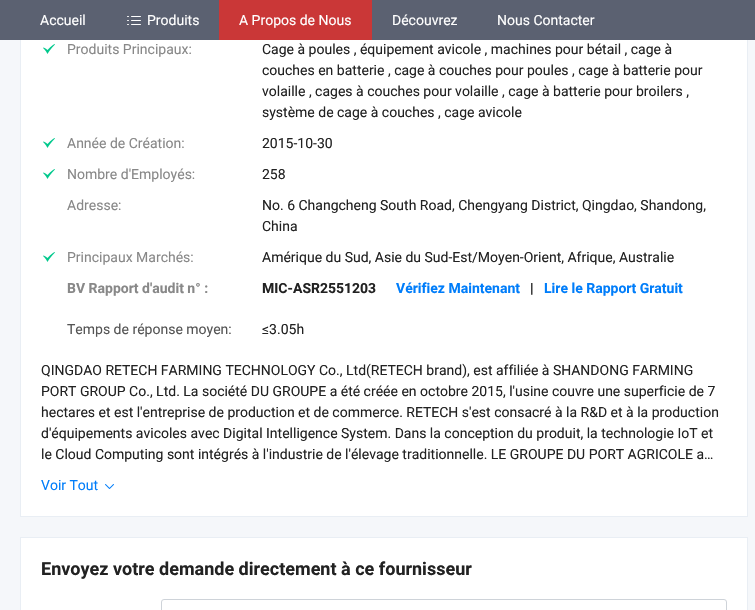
void draw(SkCanvas* canvas) {
    SkPaint paint;
    paint.setAntiAlias(true);
    auto face = [&](const char* family, int weight, float size, bool italic = false) {
        SkFontStyle style(weight, SkFontStyle::kNormal_Width,
            italic ? SkFontStyle::kItalic_Slant : SkFontStyle::kUpright_Slant);
        SkFont result(fontMgr->matchFamilyStyle(family, style), size);
        result.setSubpixel(true);
        return result;
    };
    auto write = [&](const char* s, float x, float y, const SkFont& font, SkColor color) {
        SkPaint ink(SkColor4f::FromColor(color));
        ink.setAntiAlias(true);
        canvas->drawString(s, x, y, font, ink);
    };
    auto block = [&](float x, float y, float w, float h, SkColor color) {
        SkPaint ink(SkColor4f::FromColor(color));
        ink.setAntiAlias(true);
        canvas->drawRect(SkRect::MakeXYWH(x, y, w, h), ink);
    };
    auto paste = [&](const char* path, float x, float y, float w, float h) {
        auto image = SkImages::DeferredFromEncodedData(SkData::MakeFromFileName(path));
        canvas->drawImageRect(image, SkRect::MakeXYWH(x, y, w, h), SkSamplingOptions());
    };
    canvas->clear(SkColorSetRGB(245, 247, 250));
    block(21, 40, 726, 476, SK_ColorWHITE);
    paint.setStyle(SkPaint::kStroke_Style);
    paint.setStrokeWidth(1);
    paint.setColor(SkColorSetRGB(233, 238, 244));
    canvas->drawRect(SkRect::MakeXYWH(20.5f, -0.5f, 727, 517), paint);
    block(0, 0, 755, 40, SkColorSetRGB(91, 97, 113));
    auto kFont1 = face("Roboto", 400, 14);
    write("Accueil", 40, 25, kFont1, SK_ColorWHITE);
    paste("pic1.png", 127, 16, 14, 9);
    write("Produits", 147, 25, kFont1, SK_ColorWHITE);
    block(219, 0, 153, 40, SkColorSetRGB(202, 55, 55));
    write("A Propos de Nous", 239, 25, kFont1, SK_ColorWHITE);
    write("Découvrez", 392, 25, kFont1, SK_ColorWHITE);
    write("Nous Contacter", 497, 25, kFont1, SK_ColorWHITE);
    paste("pic2.png", 43, 44, 12, 10);
    write("Produits Principaux:", 67, 54, kFont1, SkColorSetRGB(136, 136, 136));
    write("Cage à poules , équipement avicole , machines pour bétail , cage à", 262, 54, kFont1, SkColorSetRGB(34, 34, 34));
    write("couches en batterie , cage à couches pour poules , cage à batterie pour", 262, 75, kFont1, SkColorSetRGB(34, 34, 34));
    write("volaille , cages à couches pour volaille , cage à batterie pour broilers ,", 262, 96, kFont1, SkColorSetRGB(34, 34, 34));
    write("système de cage à couches , cage avicole", 262, 117, kFont1, SkColorSetRGB(34, 34, 34));
    paste("pic2.png", 43, 138, 12, 10);
    write("Année de Création:", 67, 148, kFont1, SkColorSetRGB(136, 136, 136));
    write("2015-10-30", 262, 148, kFont1, SkColorSetRGB(34, 34, 34));
    paste("pic2.png", 43, 169, 12, 10);
    write("Nombre d'Employés:", 67, 179, kFont1, SkColorSetRGB(136, 136, 136));
    write("258", 262, 179, kFont1, SkColorSetRGB(34, 34, 34));
    write("Adresse:", 67, 210, kFont1, SkColorSetRGB(136, 136, 136));
    write("No. 6 Changcheng South Road, Chengyang District, Qingdao, Shandong,", 262, 210, kFont1, SkColorSetRGB(34, 34, 34));
    write("China", 262, 231, kFont1, SkColorSetRGB(34, 34, 34));
    paste("pic2.png", 43, 252, 12, 10);
    write("Principaux Marchés:", 67, 262, kFont1, SkColorSetRGB(136, 136, 136));
    write("Amérique du Sud, Asie du Sud-Est/Moyen-Orient, Afrique, Australie", 262, 262, kFont1, SkColorSetRGB(34, 34, 34));
    auto kFont2 = face("Roboto", 700, 14);
    write("BV Rapport d'audit n° :", 67, 293, kFont2, SkColorSetRGB(136, 136, 136));
    write("MIC-ASR2551203", 262, 293, kFont2, SkColorSetRGB(34, 34, 34));
    write("Vérifiez Maintenant", 396, 293, kFont2, SkColorSetRGB(0, 125, 250));
    write("|", 530, 293, kFont2, SkColorSetRGB(34, 34, 34));
    write("Lire le Rapport Gratuit", 544, 293, kFont2, SkColorSetRGB(0, 125, 250));
    write("Temps de réponse moyen:", 67, 334, kFont1, SkColorSetRGB(85, 85, 85));
    write("≤3.05h", 262, 334, kFont1, SkColorSetRGB(34, 34, 34));
    write("QINGDAO RETECH FARMING TECHNOLOGY Co., Ltd(RETECH brand), est affiliée à SHANDONG FARMING", 41, 375, kFont1, SkColorSetRGB(34, 34, 34));
    write("PORT GROUP Co., Ltd. La société DU GROUPE a été créée en octobre 2015, l'usine couvre une superficie de 7", 41, 396, kFont1, SkColorSetRGB(34, 34, 34));
    write("hectares et est l'entreprise de production et de commerce. RETECH s'est consacré à la R&D et à la production", 41, 417, kFont1, SkColorSetRGB(34, 34, 34));
    write("d'équipements avicoles avec Digital Intelligence System. Dans la conception du produit, la technologie IoT et", 41, 438, kFont1, SkColorSetRGB(34, 34, 34));
    write("le Cloud Computing sont intégrés à l'industrie de l'élevage traditionnelle. LE GROUPE DU PORT AGRICOLE a…", 41, 459, kFont1, SkColorSetRGB(34, 34, 34));
    write("Voir Tout", 41, 490, kFont1, SkColorSetRGB(0, 125, 250));
    paste("pic3.png", 105, 484, 9, 5);
    paint.setStyle(SkPaint::kFill_Style);
    paint.setColor(SK_ColorWHITE);
    canvas->drawRect(SkRect::MakeXYWH(20.5f, 537.5f, 727, 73), paint);
    paint.setStyle(SkPaint::kStroke_Style);
    paint.setColor(SkColorSetRGB(233, 238, 244));
    canvas->drawRect(SkRect::MakeXYWH(20.5f, 537.5f, 727, 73), paint);
    auto kFont3 = face("Roboto", 700, 18);
    write("Envoyez votre demande directement à ce fournisseur", 41, 575, kFont3, SkColorSetRGB(34, 34, 34));
    paint.setColor(SkColorSetRGB(206, 211, 217));
    canvas->drawRoundRect(SkRect::MakeXYWH(161.5f, 599.5f, 565, 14), 2.5f, 2.5f, paint);
}
